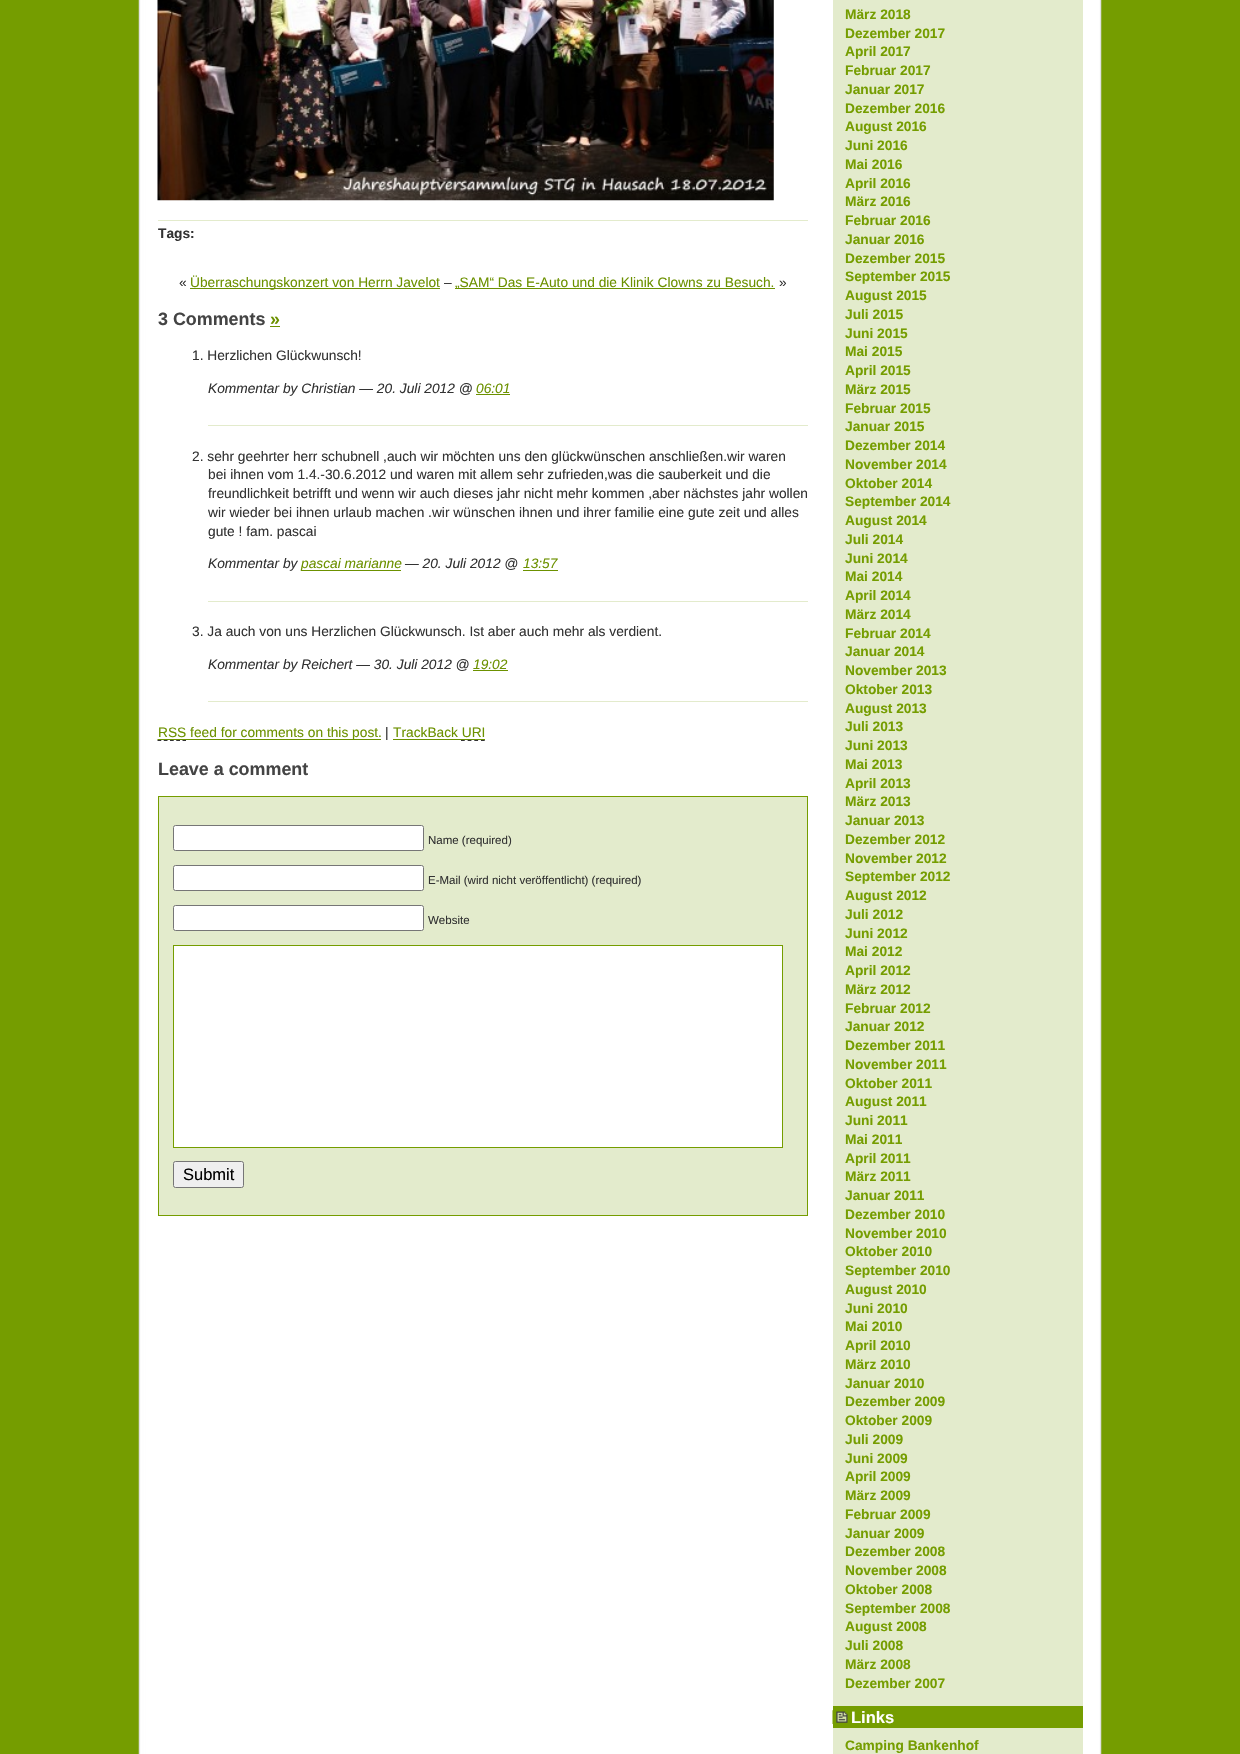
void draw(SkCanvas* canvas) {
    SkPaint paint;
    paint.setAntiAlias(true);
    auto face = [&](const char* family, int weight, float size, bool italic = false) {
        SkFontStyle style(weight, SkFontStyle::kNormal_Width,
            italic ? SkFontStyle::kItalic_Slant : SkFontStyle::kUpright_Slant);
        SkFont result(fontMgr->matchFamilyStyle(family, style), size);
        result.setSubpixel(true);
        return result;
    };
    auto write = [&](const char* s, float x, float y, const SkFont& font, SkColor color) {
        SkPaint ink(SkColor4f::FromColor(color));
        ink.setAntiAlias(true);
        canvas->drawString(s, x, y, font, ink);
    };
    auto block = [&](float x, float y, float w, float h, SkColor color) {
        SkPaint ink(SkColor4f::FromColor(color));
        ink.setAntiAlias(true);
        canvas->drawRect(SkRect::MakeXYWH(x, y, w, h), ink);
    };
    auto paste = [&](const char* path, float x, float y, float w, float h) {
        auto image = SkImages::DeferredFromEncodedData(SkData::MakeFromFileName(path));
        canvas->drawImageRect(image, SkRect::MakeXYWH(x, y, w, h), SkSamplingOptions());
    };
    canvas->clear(SkColorSetRGB(117, 157, 0));
    paste("pic1.png", 138, 0, 964, 1754);
    paste("pic2.png", 157, 0, 617, 201);
    block(158, 220, 650, 1, SkColorSetRGB(227, 235, 204));
    auto kFont1 = face("Liberation Sans", 700, 13.75f);
    write("Tags:", 158, 238, kFont1, SkColorSetRGB(51, 51, 51));
    auto kFont2 = face("Liberation Sans", 400, 13.75f);
    write("«", 179, 287, kFont2, SkColorSetRGB(51, 51, 51));
    block(190, 288, 250, 1, SkColorSetRGB(108, 145, 0));
    write("Überraschungskonzert von Herrn Javelot", 190, 287, kFont2, SkColorSetRGB(108, 145, 0));
    write("–", 444, 287, kFont2, SkColorSetRGB(51, 51, 51));
    block(455, 288, 320, 1, SkColorSetRGB(108, 145, 0));
    write("„SAM“ Das E-Auto und die Klinik Clowns zu Besuch.", 455, 287, kFont2, SkColorSetRGB(108, 145, 0));
    write("»", 779, 287, kFont2, SkColorSetRGB(51, 51, 51));
    auto kFont3 = face("Liberation Sans", 700, 17.9f);
    write("3 Comments", 158, 325, kFont3, SkColorSetRGB(68, 68, 68));
    write("»", 270, 325, kFont3, SkColorSetRGB(108, 145, 0));
    block(270, 326, 10, 1, SkColorSetRGB(108, 145, 0));
    block(208, 425, 600, 1, SkColorSetRGB(227, 235, 204));
    write("1. Herzlichen Glückwunsch!", 192, 360, kFont2, SkColorSetRGB(51, 51, 51));
    auto kFont4 = face("Liberation Sans", 400, 13.75f, true);
    write("Kommentar by Christian — 20. Juli 2012 @", 208, 393, kFont4, SkColorSetRGB(51, 51, 51));
    write("06:01", 476, 393, kFont4, SkColorSetRGB(108, 145, 0));
    block(476, 394, 34, 1, SkColorSetRGB(108, 145, 0));
    block(208, 601, 600, 1, SkColorSetRGB(227, 235, 204));
    write("2. sehr geehrter herr schubnell ,auch wir möchten uns den glückwünschen anschließen.wir waren", 192, 461, kFont2, SkColorSetRGB(51, 51, 51));
    write("bei ihnen vom 1.4.-30.6.2012 und waren mit allem sehr zufrieden,was die sauberkeit und die", 208, 479, kFont2, SkColorSetRGB(51, 51, 51));
    write("freundlichkeit betrifft und wenn wir auch dieses jahr nicht mehr kommen ,aber nächstes jahr wollen", 208, 498, kFont2, SkColorSetRGB(51, 51, 51));
    write("wir wieder bei ihnen urlaub machen .wir wünschen ihnen und ihrer familie eine gute zeit und alles", 208, 517, kFont2, SkColorSetRGB(51, 51, 51));
    write("gute ! fam. pascai", 208, 536, kFont2, SkColorSetRGB(51, 51, 51));
    write("Kommentar by", 208, 568, kFont4, SkColorSetRGB(51, 51, 51));
    block(301, 570, 100, 1, SkColorSetRGB(108, 145, 0));
    write("pascai marianne", 301, 568, kFont4, SkColorSetRGB(108, 145, 0));
    write("— 20. Juli 2012 @", 405, 568, kFont4, SkColorSetRGB(51, 51, 51));
    write("13:57", 523, 568, kFont4, SkColorSetRGB(108, 145, 0));
    block(523, 570, 35, 1, SkColorSetRGB(108, 145, 0));
    block(208, 701, 600, 1, SkColorSetRGB(227, 235, 204));
    write("3. Ja auch von uns Herzlichen Glückwunsch. Ist aber auch mehr als verdient.", 192, 636, kFont2, SkColorSetRGB(51, 51, 51));
    write("Kommentar by Reichert — 30. Juli 2012 @", 208, 669, kFont4, SkColorSetRGB(51, 51, 51));
    write("19:02", 473, 669, kFont4, SkColorSetRGB(108, 145, 0));
    block(473, 670, 35, 1, SkColorSetRGB(108, 145, 0));
    paint.setStyle(SkPaint::kStroke_Style);
    paint.setStrokeWidth(1.2f);
    paint.setColor(SkColorSetRGB(51, 51, 51));
    paint.setPathEffect(SkDashPathEffect::Make({{3.75f, 2.5f}}, 0));
    canvas->drawPath(SkPathBuilder().moveTo(157.5f, 740.5f).lineTo(186, 740.5f).detach(), paint);
    paint.setPathEffect(nullptr);
    paint.setColor(SkColorSetRGB(108, 145, 0));
    paint.setPathEffect(SkDashPathEffect::Make({{1.25f, 1.25f}}, 0));
    canvas->drawPath(SkPathBuilder().moveTo(157.5f, 739.5f).lineTo(186, 739.5f).detach(), paint);
    paint.setPathEffect(nullptr);
    block(158, 739, 223, 1, SkColorSetRGB(108, 145, 0));
    write("RSS feed for comments on this post.", 158, 737, kFont2, SkColorSetRGB(108, 145, 0));
    write("|", 385, 737, kFont2, SkColorSetRGB(51, 51, 51));
    write("TrackBack URI", 393, 737, kFont2, SkColorSetRGB(108, 145, 0));
    block(393, 739, 68, 1, SkColorSetRGB(108, 145, 0));
    paint.setColor(SkColorSetRGB(51, 51, 51));
    paint.setPathEffect(SkDashPathEffect::Make({{3.75f, 2.91f}}, 0));
    canvas->drawPath(SkPathBuilder().moveTo(461, 740.5f).lineTo(485, 740.5f).detach(), paint);
    paint.setPathEffect(nullptr);
    paint.setColor(SkColorSetRGB(108, 145, 0));
    paint.setPathEffect(SkDashPathEffect::Make({{1.25f, 1.25f}}, 0));
    canvas->drawPath(SkPathBuilder().moveTo(461.5f, 739.5f).lineTo(485, 739.5f).detach(), paint);
    paint.setPathEffect(nullptr);
    block(461, 739, 24, 1, SkColorSetRGB(108, 145, 0));
    write("Leave a comment", 158, 775, kFont3, SkColorSetRGB(68, 68, 68));
    paint.setStyle(SkPaint::kFill_Style);
    paint.setColor(SkColorSetRGB(227, 235, 204));
    canvas->drawRect(SkRect::MakeXYWH(158.5f, 796.5f, 649, 419), paint);
    paint.setStyle(SkPaint::kStroke_Style);
    paint.setStrokeWidth(1);
    paint.setColor(SkColorSetRGB(117, 157, 0));
    canvas->drawRect(SkRect::MakeXYWH(158.5f, 796.5f, 649, 419), paint);
    paint.setStyle(SkPaint::kFill_Style);
    paint.setColor(SK_ColorWHITE);
    canvas->drawRoundRect(SkRect::MakeXYWH(173.5f, 825.5f, 250, 25), 2, 2, paint);
    paint.setStyle(SkPaint::kStroke_Style);
    paint.setColor(SkColorSetRGB(118, 118, 118));
    canvas->drawRoundRect(SkRect::MakeXYWH(173.5f, 825.5f, 250, 25), 2, 2, paint);
    auto kFont5 = face("Liberation Sans", 400, 11.5f);
    write("Name (required)", 428, 844, kFont5, SkColorSetRGB(51, 51, 51));
    paint.setStyle(SkPaint::kFill_Style);
    paint.setColor(SK_ColorWHITE);
    canvas->drawRoundRect(SkRect::MakeXYWH(173.5f, 865.5f, 250, 25), 2, 2, paint);
    paint.setStyle(SkPaint::kStroke_Style);
    paint.setColor(SkColorSetRGB(118, 118, 118));
    canvas->drawRoundRect(SkRect::MakeXYWH(173.5f, 865.5f, 250, 25), 2, 2, paint);
    write("E-Mail (wird nicht veröffentlicht) (required)", 428, 884, kFont5, SkColorSetRGB(51, 51, 51));
    paint.setStyle(SkPaint::kFill_Style);
    paint.setColor(SK_ColorWHITE);
    canvas->drawRoundRect(SkRect::MakeXYWH(173.5f, 905.5f, 250, 25), 2, 2, paint);
    paint.setStyle(SkPaint::kStroke_Style);
    paint.setColor(SkColorSetRGB(118, 118, 118));
    canvas->drawRoundRect(SkRect::MakeXYWH(173.5f, 905.5f, 250, 25), 2, 2, paint);
    write("Website", 428, 924, kFont5, SkColorSetRGB(51, 51, 51));
    paint.setStyle(SkPaint::kFill_Style);
    paint.setColor(SK_ColorWHITE);
    canvas->drawRect(SkRect::MakeXYWH(173.5f, 945.5f, 609, 202), paint);
    paint.setStyle(SkPaint::kStroke_Style);
    paint.setColor(SkColorSetRGB(117, 157, 0));
    canvas->drawRect(SkRect::MakeXYWH(173.5f, 945.5f, 609, 202), paint);
    paint.setStyle(SkPaint::kFill_Style);
    paint.setColor(SkColorSetRGB(239, 239, 239));
    canvas->drawRoundRect(SkRect::MakeXYWH(173.5f, 1161.5f, 70, 26), 2, 2, paint);
    paint.setStyle(SkPaint::kStroke_Style);
    paint.setColor(SkColorSetRGB(118, 118, 118));
    canvas->drawRoundRect(SkRect::MakeXYWH(173.5f, 1161.5f, 70, 26), 2, 2, paint);
    auto kFont6 = face("Liberation Sans", 400, 16.5f);
    write("Submit", 183, 1180, kFont6, SK_ColorBLACK);
    block(833, 0, 250, 1754, SkColorSetRGB(227, 235, 204));
    write("März 2018", 845, 19, kFont1, SkColorSetRGB(117, 157, 0));
    write("Dezember 2017", 845, 38, kFont1, SkColorSetRGB(117, 157, 0));
    write("April 2017", 845, 56, kFont1, SkColorSetRGB(117, 157, 0));
    write("Februar 2017", 845, 75, kFont1, SkColorSetRGB(117, 157, 0));
    write("Januar 2017", 845, 94, kFont1, SkColorSetRGB(117, 157, 0));
    write("Dezember 2016", 845, 113, kFont1, SkColorSetRGB(117, 157, 0));
    write("August 2016", 845, 131, kFont1, SkColorSetRGB(117, 157, 0));
    write("Juni 2016", 845, 150, kFont1, SkColorSetRGB(117, 157, 0));
    write("Mai 2016", 845, 169, kFont1, SkColorSetRGB(117, 157, 0));
    write("April 2016", 845, 188, kFont1, SkColorSetRGB(117, 157, 0));
    write("März 2016", 845, 206, kFont1, SkColorSetRGB(117, 157, 0));
    write("Februar 2016", 845, 225, kFont1, SkColorSetRGB(117, 157, 0));
    write("Januar 2016", 845, 244, kFont1, SkColorSetRGB(117, 157, 0));
    write("Dezember 2015", 845, 263, kFont1, SkColorSetRGB(117, 157, 0));
    write("September 2015", 845, 281, kFont1, SkColorSetRGB(117, 157, 0));
    write("August 2015", 845, 300, kFont1, SkColorSetRGB(117, 157, 0));
    write("Juli 2015", 845, 319, kFont1, SkColorSetRGB(117, 157, 0));
    write("Juni 2015", 845, 338, kFont1, SkColorSetRGB(117, 157, 0));
    write("Mai 2015", 845, 356, kFont1, SkColorSetRGB(117, 157, 0));
    write("April 2015", 845, 375, kFont1, SkColorSetRGB(117, 157, 0));
    write("März 2015", 845, 394, kFont1, SkColorSetRGB(117, 157, 0));
    write("Februar 2015", 845, 413, kFont1, SkColorSetRGB(117, 157, 0));
    write("Januar 2015", 845, 431, kFont1, SkColorSetRGB(117, 157, 0));
    write("Dezember 2014", 845, 450, kFont1, SkColorSetRGB(117, 157, 0));
    write("November 2014", 845, 469, kFont1, SkColorSetRGB(117, 157, 0));
    write("Oktober 2014", 845, 488, kFont1, SkColorSetRGB(117, 157, 0));
    write("September 2014", 845, 506, kFont1, SkColorSetRGB(117, 157, 0));
    write("August 2014", 845, 525, kFont1, SkColorSetRGB(117, 157, 0));
    write("Juli 2014", 845, 544, kFont1, SkColorSetRGB(117, 157, 0));
    write("Juni 2014", 845, 563, kFont1, SkColorSetRGB(117, 157, 0));
    write("Mai 2014", 845, 581, kFont1, SkColorSetRGB(117, 157, 0));
    write("April 2014", 845, 600, kFont1, SkColorSetRGB(117, 157, 0));
    write("März 2014", 845, 619, kFont1, SkColorSetRGB(117, 157, 0));
    write("Februar 2014", 845, 638, kFont1, SkColorSetRGB(117, 157, 0));
    write("Januar 2014", 845, 656, kFont1, SkColorSetRGB(117, 157, 0));
    write("November 2013", 845, 675, kFont1, SkColorSetRGB(117, 157, 0));
    write("Oktober 2013", 845, 694, kFont1, SkColorSetRGB(117, 157, 0));
    write("August 2013", 845, 713, kFont1, SkColorSetRGB(117, 157, 0));
    write("Juli 2013", 845, 731, kFont1, SkColorSetRGB(117, 157, 0));
    write("Juni 2013", 845, 750, kFont1, SkColorSetRGB(117, 157, 0));
    write("Mai 2013", 845, 769, kFont1, SkColorSetRGB(117, 157, 0));
    write("April 2013", 845, 788, kFont1, SkColorSetRGB(117, 157, 0));
    write("März 2013", 845, 806, kFont1, SkColorSetRGB(117, 157, 0));
    write("Januar 2013", 845, 825, kFont1, SkColorSetRGB(117, 157, 0));
    write("Dezember 2012", 845, 844, kFont1, SkColorSetRGB(117, 157, 0));
    write("November 2012", 845, 863, kFont1, SkColorSetRGB(117, 157, 0));
    write("September 2012", 845, 881, kFont1, SkColorSetRGB(117, 157, 0));
    write("August 2012", 845, 900, kFont1, SkColorSetRGB(117, 157, 0));
    write("Juli 2012", 845, 919, kFont1, SkColorSetRGB(117, 157, 0));
    write("Juni 2012", 845, 938, kFont1, SkColorSetRGB(117, 157, 0));
    write("Mai 2012", 845, 956, kFont1, SkColorSetRGB(117, 157, 0));
    write("April 2012", 845, 975, kFont1, SkColorSetRGB(117, 157, 0));
    write("März 2012", 845, 994, kFont1, SkColorSetRGB(117, 157, 0));
    write("Februar 2012", 845, 1013, kFont1, SkColorSetRGB(117, 157, 0));
    write("Januar 2012", 845, 1031, kFont1, SkColorSetRGB(117, 157, 0));
    write("Dezember 2011", 845, 1050, kFont1, SkColorSetRGB(117, 157, 0));
    write("November 2011", 845, 1069, kFont1, SkColorSetRGB(117, 157, 0));
    write("Oktober 2011", 845, 1088, kFont1, SkColorSetRGB(117, 157, 0));
    write("August 2011", 845, 1106, kFont1, SkColorSetRGB(117, 157, 0));
    write("Juni 2011", 845, 1125, kFont1, SkColorSetRGB(117, 157, 0));
    write("Mai 2011", 845, 1144, kFont1, SkColorSetRGB(117, 157, 0));
    write("April 2011", 845, 1163, kFont1, SkColorSetRGB(117, 157, 0));
    write("März 2011", 845, 1181, kFont1, SkColorSetRGB(117, 157, 0));
    write("Januar 2011", 845, 1200, kFont1, SkColorSetRGB(117, 157, 0));
    write("Dezember 2010", 845, 1219, kFont1, SkColorSetRGB(117, 157, 0));
    write("November 2010", 845, 1238, kFont1, SkColorSetRGB(117, 157, 0));
    write("Oktober 2010", 845, 1256, kFont1, SkColorSetRGB(117, 157, 0));
    write("September 2010", 845, 1275, kFont1, SkColorSetRGB(117, 157, 0));
    write("August 2010", 845, 1294, kFont1, SkColorSetRGB(117, 157, 0));
    write("Juni 2010", 845, 1313, kFont1, SkColorSetRGB(117, 157, 0));
    write("Mai 2010", 845, 1331, kFont1, SkColorSetRGB(117, 157, 0));
    write("April 2010", 845, 1350, kFont1, SkColorSetRGB(117, 157, 0));
    write("März 2010", 845, 1369, kFont1, SkColorSetRGB(117, 157, 0));
    write("Januar 2010", 845, 1388, kFont1, SkColorSetRGB(117, 157, 0));
    write("Dezember 2009", 845, 1406, kFont1, SkColorSetRGB(117, 157, 0));
    write("Oktober 2009", 845, 1425, kFont1, SkColorSetRGB(117, 157, 0));
    write("Juli 2009", 845, 1444, kFont1, SkColorSetRGB(117, 157, 0));
    write("Juni 2009", 845, 1463, kFont1, SkColorSetRGB(117, 157, 0));
    write("April 2009", 845, 1481, kFont1, SkColorSetRGB(117, 157, 0));
    write("März 2009", 845, 1500, kFont1, SkColorSetRGB(117, 157, 0));
    write("Februar 2009", 845, 1519, kFont1, SkColorSetRGB(117, 157, 0));
    write("Januar 2009", 845, 1538, kFont1, SkColorSetRGB(117, 157, 0));
    write("Dezember 2008", 845, 1556, kFont1, SkColorSetRGB(117, 157, 0));
    write("November 2008", 845, 1575, kFont1, SkColorSetRGB(117, 157, 0));
    write("Oktober 2008", 845, 1594, kFont1, SkColorSetRGB(117, 157, 0));
    write("September 2008", 845, 1613, kFont1, SkColorSetRGB(117, 157, 0));
    write("August 2008", 845, 1631, kFont1, SkColorSetRGB(117, 157, 0));
    write("Juli 2008", 845, 1650, kFont1, SkColorSetRGB(117, 157, 0));
    write("März 2008", 845, 1669, kFont1, SkColorSetRGB(117, 157, 0));
    write("Dezember 2007", 845, 1688, kFont1, SkColorSetRGB(117, 157, 0));
    block(833, 1706, 250, 22, SkColorSetRGB(117, 157, 0));
    paste("pic3.png", 832, 1710, 16, 14);
    auto kFont7 = face("Liberation Sans", 700, 16.5f);
    write("Links", 851, 1723, kFont7, SK_ColorWHITE);
    write("Camping Bankenhof", 845, 1750, kFont1, SkColorSetRGB(117, 157, 0));
}
